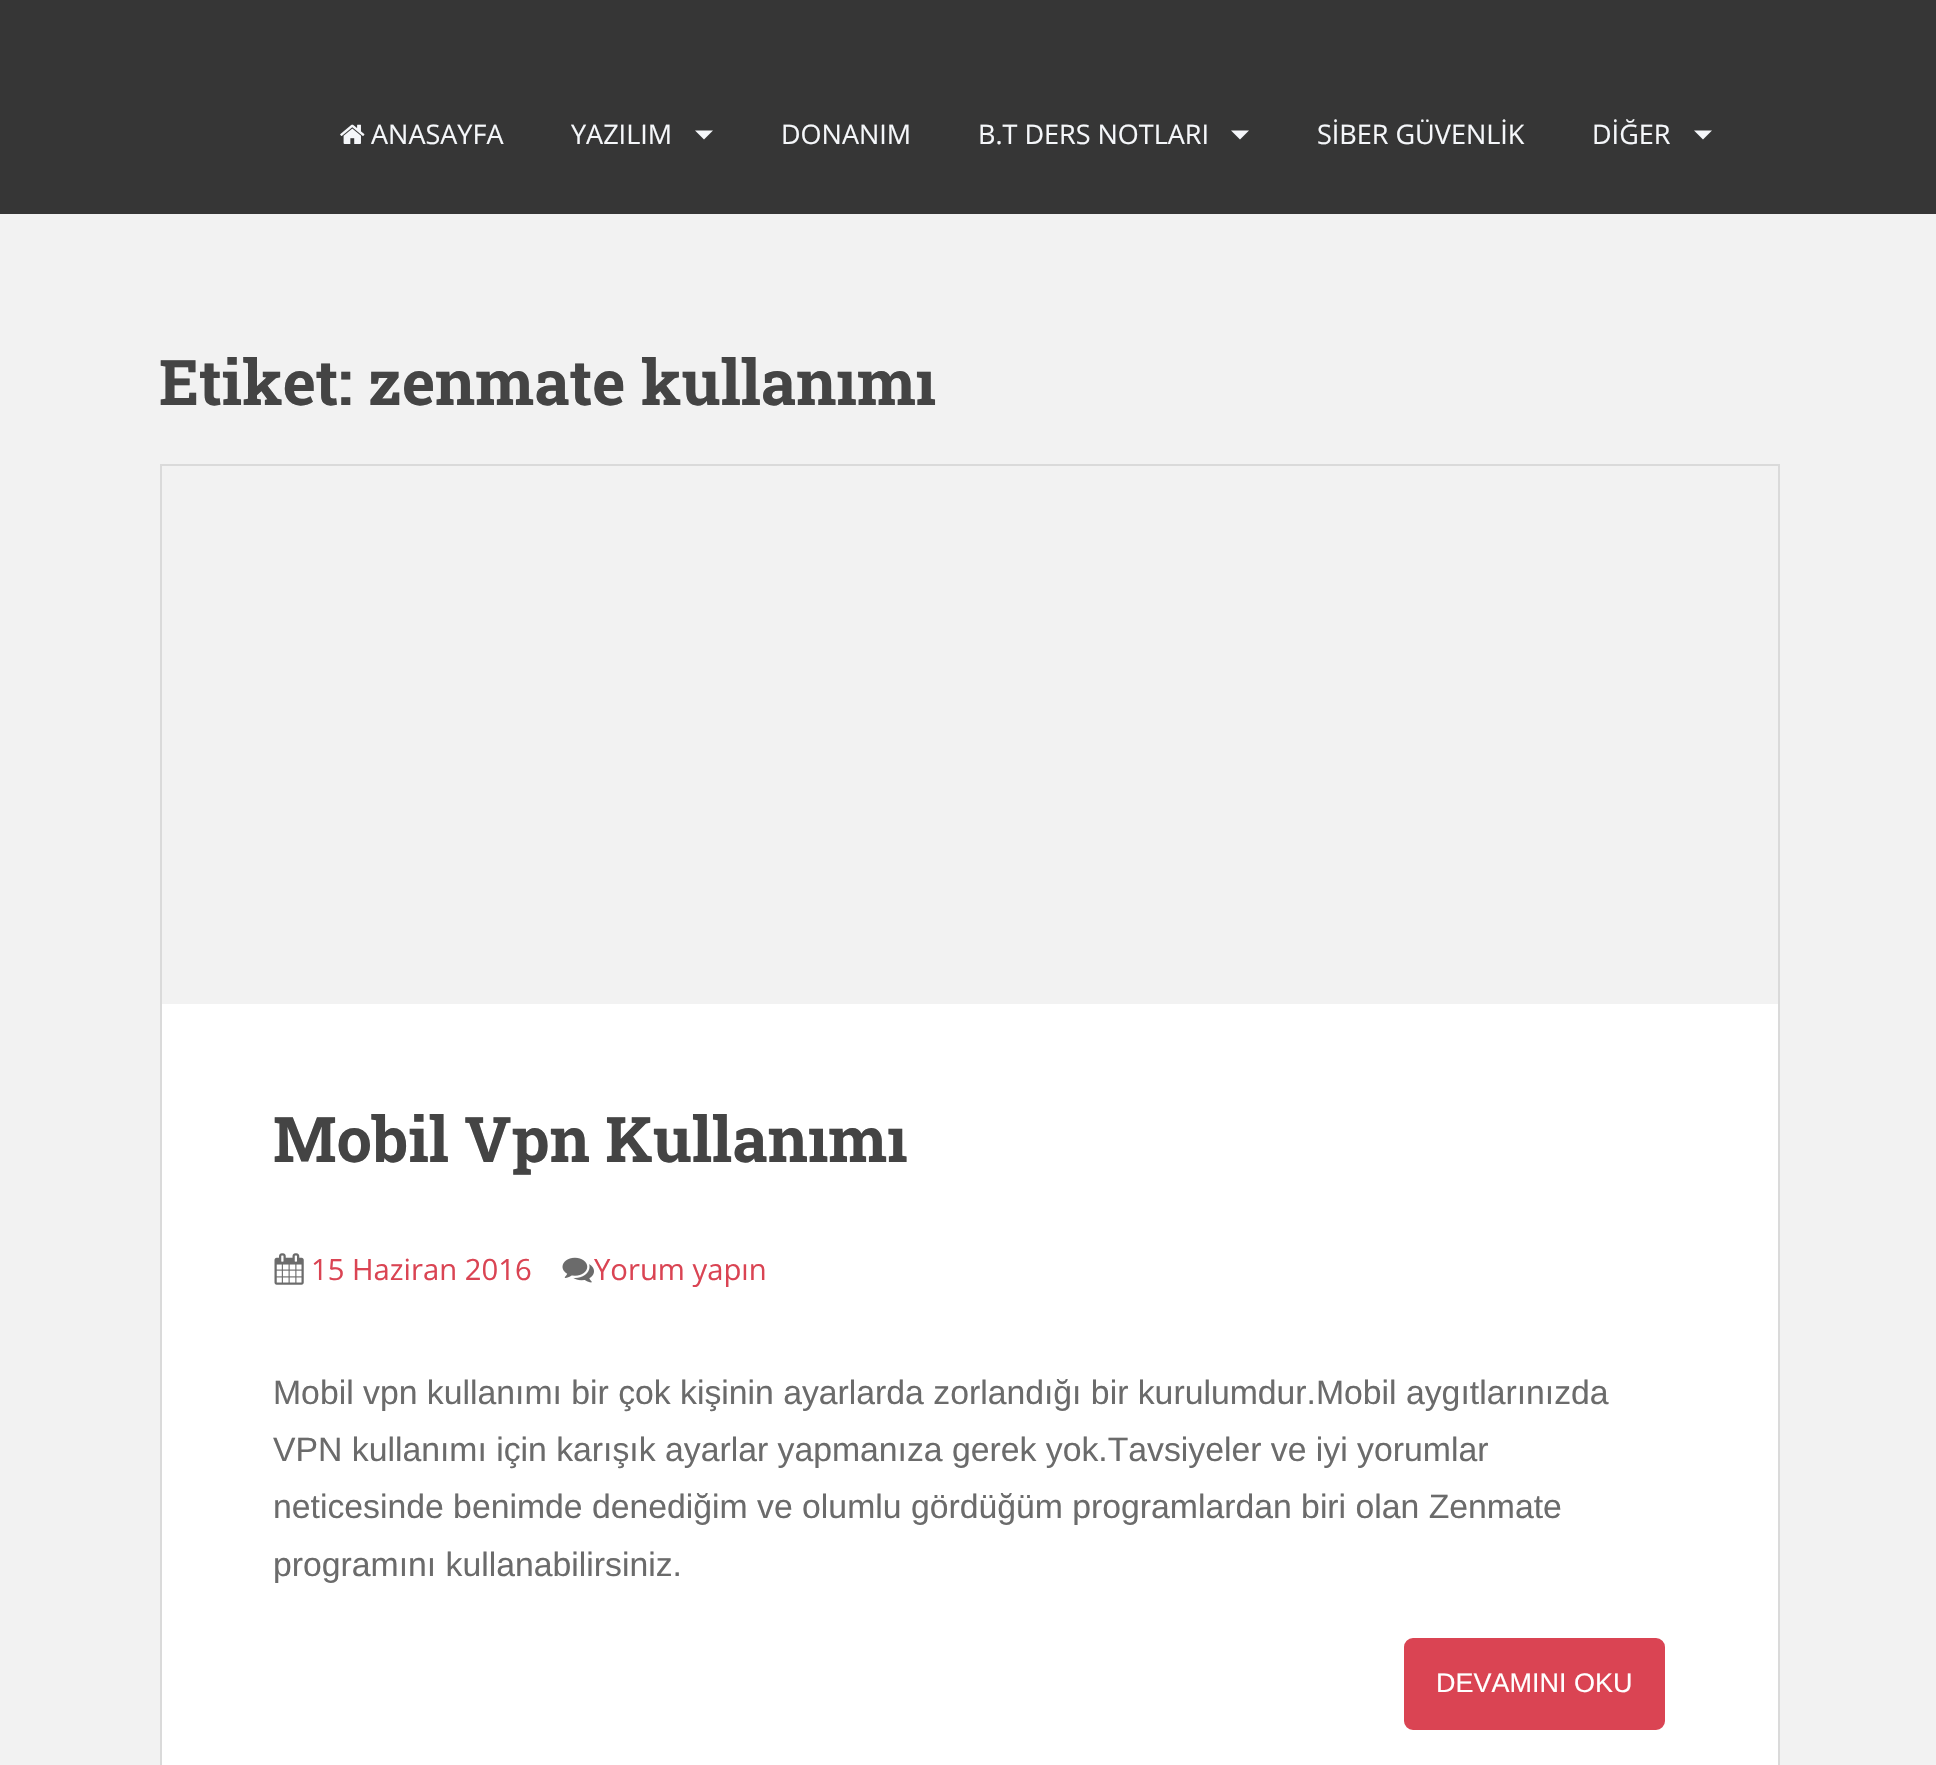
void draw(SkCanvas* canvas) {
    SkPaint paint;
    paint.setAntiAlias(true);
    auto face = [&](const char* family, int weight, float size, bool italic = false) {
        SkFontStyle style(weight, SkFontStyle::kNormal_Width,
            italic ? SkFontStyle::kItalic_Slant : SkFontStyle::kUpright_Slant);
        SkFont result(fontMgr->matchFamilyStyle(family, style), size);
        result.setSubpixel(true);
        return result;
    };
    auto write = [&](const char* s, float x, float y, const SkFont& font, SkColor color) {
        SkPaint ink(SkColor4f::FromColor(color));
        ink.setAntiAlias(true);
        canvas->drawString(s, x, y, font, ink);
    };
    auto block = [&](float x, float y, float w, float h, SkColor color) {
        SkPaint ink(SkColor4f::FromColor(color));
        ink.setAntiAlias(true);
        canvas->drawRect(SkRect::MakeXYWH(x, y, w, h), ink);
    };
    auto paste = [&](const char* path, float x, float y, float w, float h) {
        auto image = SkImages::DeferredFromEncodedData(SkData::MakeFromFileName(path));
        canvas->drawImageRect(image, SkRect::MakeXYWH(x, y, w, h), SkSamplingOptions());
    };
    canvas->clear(SkColorSetRGB(242, 242, 242));
    block(0, 0, 1936, 214, SkColorSetRGB(54, 54, 54));
    paste("pic1.png", 340, 124, 25, 20);
    auto kFont1 = face("Open Sans", 400, 27);
    write("ANASAYFA", 371, 144, kFont1, SkColorSetRGB(245, 247, 250));
    write("YAZILIM", 571, 144, kFont1, SkColorSetRGB(245, 247, 250));
    paint.setColor(SkColorSetRGB(245, 247, 250));
    canvas->drawPath(SkPathBuilder().moveTo(695, 130.5f).lineTo(713, 130.5f).lineTo(704, 139.5f).close().detach(), paint);
    write("DONANIM", 781, 144, kFont1, SkColorSetRGB(245, 247, 250));
    write("B.T DERS NOTLARI", 978, 144, kFont1, SkColorSetRGB(245, 247, 250));
    canvas->drawPath(SkPathBuilder().moveTo(1231, 130.5f).lineTo(1249, 130.5f).lineTo(1240, 139.5f).close().detach(), paint);
    write("SİBER GÜVENLİK", 1317, 144, kFont1, SkColorSetRGB(245, 247, 250));
    write("DİĞER", 1592, 144, kFont1, SkColorSetRGB(245, 247, 250));
    canvas->drawPath(SkPathBuilder().moveTo(1694, 130.5f).lineTo(1712, 130.5f).lineTo(1703, 139.5f).close().detach(), paint);
    auto kFont2 = face("Roboto Slab", 700, 63);
    write("Etiket: zenmate kullanımı", 159, 405, kFont2, SkColorSetRGB(68, 68, 68));
    paint.setStyle(SkPaint::kStroke_Style);
    paint.setStrokeWidth(2);
    paint.setColor(SkColorSetRGB(218, 218, 218));
    canvas->drawRect(SkRect::MakeXYWH(161, 465, 1618, 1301), paint);
    block(162, 1004, 1616, 761, SK_ColorWHITE);
    write("Mobil Vpn Kullanımı", 273, 1162, kFont2, SkColorSetRGB(68, 68, 68));
    paste("pic2.png", 274, 1253, 30, 32);
    auto kFont3 = face("Open Sans", 400, 29.25f);
    write("15 Haziran 2016", 311, 1280, kFont3, SkColorSetRGB(218, 68, 83));
    paste("pic3.png", 562, 1257, 32, 26);
    write("Yorum yapın", 594, 1280, kFont3, SkColorSetRGB(218, 68, 83));
    auto kFont4 = face("Liberation Sans", 400, 33.75f);
    write("Mobil vpn kullanımı bir çok kişinin ayarlarda zorlandığı bir kurulumdur.Mobil aygıtlarınızda", 273, 1404, kFont4, SkColorSetRGB(107, 107, 107));
    write("VPN kullanımı için karışık ayarlar yapmanıza gerek yok.Tavsiyeler ve iyi yorumlar", 273, 1461, kFont4, SkColorSetRGB(107, 107, 107));
    write("neticesinde benimde denediğim ve olumlu gördüğüm programlardan biri olan Zenmate", 273, 1518, kFont4, SkColorSetRGB(107, 107, 107));
    write("programını kullanabilirsiniz.", 273, 1576, kFont4, SkColorSetRGB(107, 107, 107));
    paint.setStyle(SkPaint::kFill_Style);
    paint.setColor(SkColorSetRGB(218, 68, 83));
    canvas->drawRoundRect(SkRect::MakeXYWH(1405, 1639, 259, 90), 8, 8, paint);
    paint.setStyle(SkPaint::kStroke_Style);
    canvas->drawRoundRect(SkRect::MakeXYWH(1405, 1639, 259, 90), 8, 8, paint);
    auto kFont5 = face("Liberation Sans", 400, 27);
    write("DEVAMINI OKU", 1436, 1692, kFont5, SK_ColorWHITE);
}
